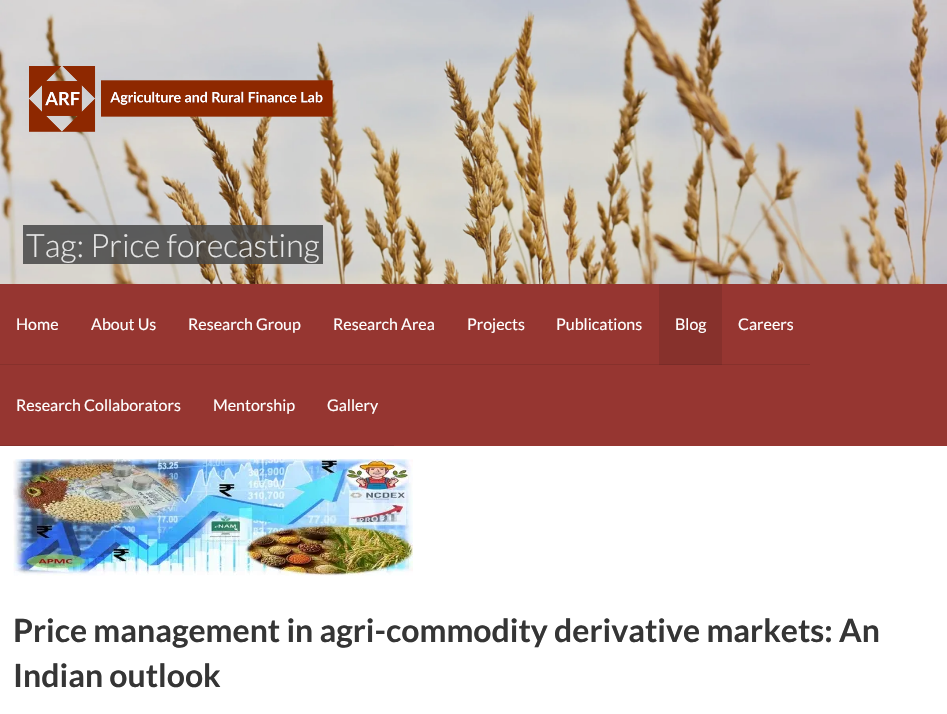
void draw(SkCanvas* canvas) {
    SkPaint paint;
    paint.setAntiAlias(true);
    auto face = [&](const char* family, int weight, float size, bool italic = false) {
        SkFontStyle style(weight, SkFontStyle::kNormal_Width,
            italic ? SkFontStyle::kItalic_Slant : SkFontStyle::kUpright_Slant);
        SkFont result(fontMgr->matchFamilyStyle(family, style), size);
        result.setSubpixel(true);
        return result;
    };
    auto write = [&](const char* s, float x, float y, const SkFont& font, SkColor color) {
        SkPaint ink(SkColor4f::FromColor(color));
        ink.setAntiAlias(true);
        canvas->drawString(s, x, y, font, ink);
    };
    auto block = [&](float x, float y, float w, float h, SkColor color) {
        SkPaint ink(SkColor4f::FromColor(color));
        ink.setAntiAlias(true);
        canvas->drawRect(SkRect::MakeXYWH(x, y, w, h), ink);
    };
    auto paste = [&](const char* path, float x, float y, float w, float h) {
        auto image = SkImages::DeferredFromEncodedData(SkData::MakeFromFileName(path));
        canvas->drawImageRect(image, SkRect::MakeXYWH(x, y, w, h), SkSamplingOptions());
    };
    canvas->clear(SK_ColorWHITE);
    paste("pic1.png", 0, 0, 947, 284);
    paste("pic2.png", 29, 66, 304, 66);
    block(23, 225, 300, 39, SkColorSetARGB(217, 69, 69, 69));
    auto kFont1 = face("Lato", 300, 32);
    write("Tag: Price forecasting", 26, 257, kFont1, SkColorSetRGB(230, 230, 230));
    block(0, 284, 947, 162, SkColorSetRGB(150, 54, 49));
    block(0, 364, 659, 1, SkColorSetRGB(135, 49, 44));
    auto kFont2 = face("Lato", 400, 16);
    write("Home", 16, 330, kFont2, SK_ColorWHITE);
    write("About Us", 91, 330, kFont2, SK_ColorWHITE);
    write("Research Group", 188, 330, kFont2, SK_ColorWHITE);
    write("Research Area", 333, 330, kFont2, SK_ColorWHITE);
    write("Projects", 467, 330, kFont2, SK_ColorWHITE);
    write("Publications", 556, 330, kFont2, SK_ColorWHITE);
    block(659, 284, 63, 80, SkColorSetRGB(135, 49, 44));
    block(659, 364, 63, 1, SkColorSetRGB(122, 44, 40));
    write("Blog", 675, 330, kFont2, SK_ColorWHITE);
    block(722, 364, 88, 1, SkColorSetRGB(135, 49, 44));
    write("Careers", 738, 330, kFont2, SK_ColorWHITE);
    block(0, 445, 394, 1, SkColorSetRGB(135, 49, 44));
    write("Research Collaborators", 16, 411, kFont2, SK_ColorWHITE);
    write("Mentorship", 213, 411, kFont2, SK_ColorWHITE);
    write("Gallery", 327, 411, kFont2, SK_ColorWHITE);
    paste("pic3.png", 13, 459, 400, 117);
    auto kFont3 = face("Lato", 700, 32);
    write("Price management in agri-commodity derivative markets: An", 13, 642, kFont3, SkColorSetRGB(53, 53, 53));
    write("Indian outlook", 13, 687, kFont3, SkColorSetRGB(53, 53, 53));
}
